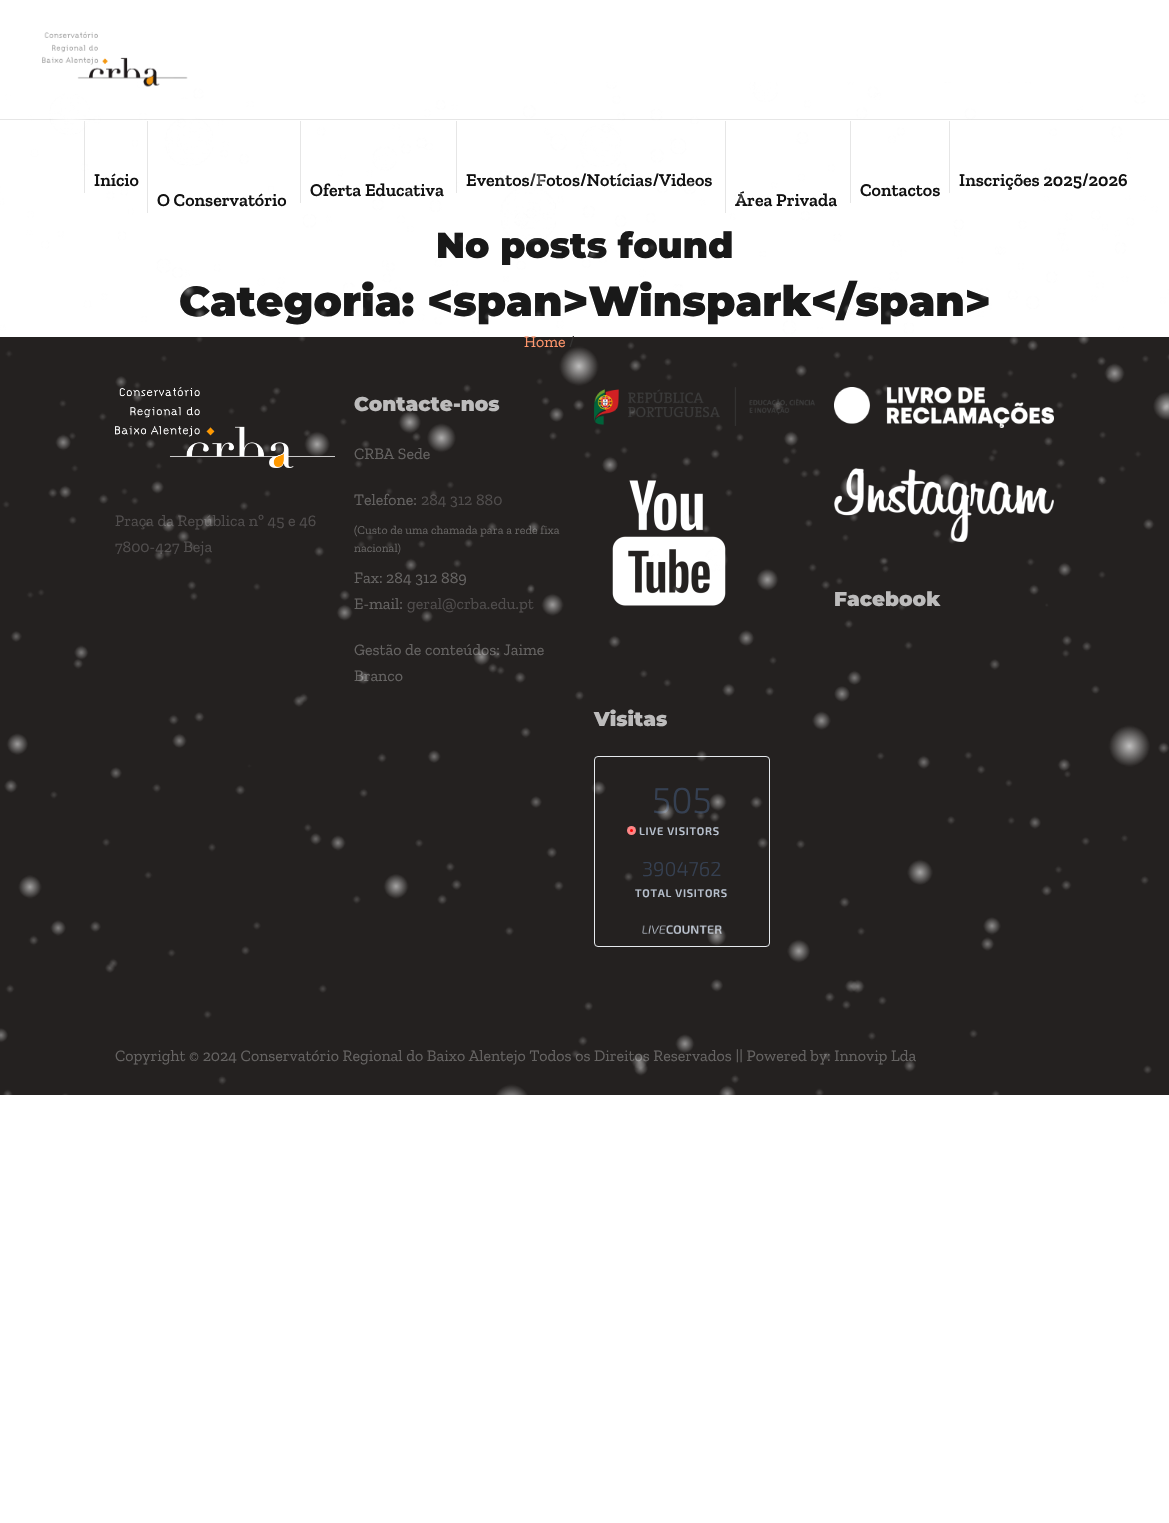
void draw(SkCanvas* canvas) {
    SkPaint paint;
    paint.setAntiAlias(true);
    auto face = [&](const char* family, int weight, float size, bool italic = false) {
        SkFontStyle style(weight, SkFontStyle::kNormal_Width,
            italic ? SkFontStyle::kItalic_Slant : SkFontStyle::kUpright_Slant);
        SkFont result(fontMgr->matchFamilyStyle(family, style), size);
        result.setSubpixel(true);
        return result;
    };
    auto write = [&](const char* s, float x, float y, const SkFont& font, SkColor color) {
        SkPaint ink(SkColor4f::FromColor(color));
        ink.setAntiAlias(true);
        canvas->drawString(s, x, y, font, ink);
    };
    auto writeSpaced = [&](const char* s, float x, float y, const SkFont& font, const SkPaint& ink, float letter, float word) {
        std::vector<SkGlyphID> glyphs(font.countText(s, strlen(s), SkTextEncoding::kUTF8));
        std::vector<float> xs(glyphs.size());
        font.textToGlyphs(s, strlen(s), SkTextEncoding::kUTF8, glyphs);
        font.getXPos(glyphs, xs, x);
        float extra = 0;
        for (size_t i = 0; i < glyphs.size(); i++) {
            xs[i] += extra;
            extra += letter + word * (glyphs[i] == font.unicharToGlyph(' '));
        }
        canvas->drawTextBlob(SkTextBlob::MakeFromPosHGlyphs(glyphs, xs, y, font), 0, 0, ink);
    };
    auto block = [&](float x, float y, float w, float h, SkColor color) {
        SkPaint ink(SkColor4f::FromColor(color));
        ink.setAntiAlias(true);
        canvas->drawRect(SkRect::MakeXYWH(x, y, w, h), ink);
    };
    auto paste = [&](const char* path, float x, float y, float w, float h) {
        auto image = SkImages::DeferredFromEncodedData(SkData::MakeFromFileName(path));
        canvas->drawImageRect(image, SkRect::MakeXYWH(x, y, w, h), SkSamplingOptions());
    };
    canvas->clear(SK_ColorWHITE);
    block(0, 119, 1169, 1, SkColorSetRGB(230, 230, 230));
    paste("pic2.png", 42, 31, 146, 56);
    block(84, 121, 1, 72, SkColorSetRGB(230, 230, 230));
    auto kFont1 = face("Zilla Slab", 600, 18);
    write("Início", 94, 186, kFont1, SkColorSetRGB(17, 17, 17));
    block(147, 121, 1, 92, SkColorSetRGB(230, 230, 230));
    write("O Conservatório", 157, 206, kFont1, SkColorSetRGB(17, 17, 17));
    block(300, 121, 1, 82, SkColorSetRGB(230, 230, 230));
    write("Oferta Educativa", 310, 196, kFont1, SkColorSetRGB(17, 17, 17));
    block(456, 121, 1, 72, SkColorSetRGB(230, 230, 230));
    write("Eventos/Fotos/Notícias/Videos", 466, 186, kFont1, SkColorSetRGB(17, 17, 17));
    block(725, 121, 1, 92, SkColorSetRGB(230, 230, 230));
    write("Área Privada", 735, 206, kFont1, SkColorSetRGB(17, 17, 17));
    block(850, 121, 1, 82, SkColorSetRGB(230, 230, 230));
    write("Contactos", 860, 196, kFont1, SkColorSetRGB(17, 17, 17));
    block(949, 121, 1, 72, SkColorSetRGB(230, 230, 230));
    write("Inscrições 2025/2026", 959, 186, kFont1, SkColorSetRGB(17, 17, 17));
    auto kFont2 = face("Montserrat", 900, 36);
    write("No posts found", 436, 258, kFont2, SkColorSetRGB(25, 25, 25));
    auto kFont3 = face("Montserrat", 900, 42);
    write("Categoria: <span>Winspark</span>", 179, 316, kFont3, SkColorSetRGB(25, 25, 25));
    block(0, 337, 1169, 758, SkColorSetRGB(36, 33, 32));
    auto kFont4 = face("Zilla Slab", 400, 16);
    write("Home", 524, 347, kFont4, SkColorSetRGB(254, 149, 107));
    write("/", 569, 347, kFont4, SkColorSetRGB(51, 50, 49));
    auto kFont5 = face("Montserrat", 900, 20);
    write("Contacte-nos", 354, 411, kFont5, SkColorSetRGB(189, 188, 188));
    write("CRBA Sede", 354, 459, kFont4, SkColorSetRGB(102, 100, 99));
    write("Telefone:", 354, 505, kFont4, SkColorSetRGB(102, 100, 99));
    write("284 312 880", 421, 505, kFont4, SkColorSetRGB(80, 77, 77));
    auto kFont6 = face("Zilla Slab", 400, 12);
    write("(Custo de uma chamada para a rede fixa", 354, 534, kFont6, SkColorSetRGB(102, 100, 99));
    write("nacional)", 354, 552, kFont6, SkColorSetRGB(102, 100, 99));
    write("Fax: 284 312 889", 354, 583, kFont4, SkColorSetRGB(102, 100, 99));
    write("E-mail:", 354, 609, kFont4, SkColorSetRGB(102, 100, 99));
    write("geral@crba.edu.pt", 407, 609, kFont4, SkColorSetRGB(80, 77, 77));
    write("Gestão de conteúdos: Jaime", 354, 655, kFont4, SkColorSetRGB(102, 100, 99));
    write("Branco", 354, 681, kFont4, SkColorSetRGB(102, 100, 99));
    paste("pic3.png", 594, 387, 221, 39);
    paste("pic4.png", 834, 387, 220, 41);
    paste("pic5.png", 115, 387, 220, 81);
    write("Praça da República nº 45 e 46", 115, 526, kFont4, SkColorSetRGB(80, 77, 77));
    write("7800-427 Beja", 115, 552, kFont4, SkColorSetRGB(80, 77, 77));
    paste("pic6.png", 612, 480, 114, 126);
    paste("pic7.png", 834, 468, 220, 74);
    write("Facebook", 834, 606, kFont5, SkColorSetRGB(189, 188, 188));
    write("Visitas", 594, 726, kFont5, SkColorSetRGB(189, 188, 188));
    paint.setStyle(SkPaint::kStroke_Style);
    paint.setStrokeWidth(1);
    paint.setColor(SkColorSetRGB(230, 234, 238));
    canvas->drawRoundRect(SkRect::MakeXYWH(594.5f, 756.5f, 175, 190), 3.5f, 3.5f, paint);
    auto kFont7 = face("Exo 2", 300, 36);
    write("505", 652, 813, kFont7, SkColorSetRGB(53, 64, 82));
    paint.setStyle(SkPaint::kFill_Style);
    paint.setColor(SkColorSetRGB(253, 134, 134));
    canvas->drawCircle(631.5f, 830.5f, 4.5f, paint);
    paint.setColor(SkColorSetRGB(255, 0, 0));
    canvas->drawCircle(631.5f, 830.5f, 1.5f, paint);
    auto kFont8 = face("Exo 2", 600, 11);
    paint.setColor(SkColorSetRGB(183, 192, 205));
    writeSpaced("LIVE VISITORS", 639, 835, kFont8, paint, 0.75f, 0);
    auto kFont9 = face("Exo 2", 300, 20);
    write("3904762", 642, 876, kFont9, SkColorSetRGB(53, 64, 82));
    writeSpaced("TOTAL VISITORS", 635, 897, kFont8, paint, 0.75f, 0);
    paste("pic8.png", 642, 925, 80, 9);
    write("Copyright © 2024 Conservatório Regional do Baixo Alentejo Todos os Direitos Reservados || Powered by: Innovip Lda", 115, 1061, kFont4, SkColorSetRGB(102, 100, 99));
    paste("pic1.png", 0, 82, 1169, 1013);
}
